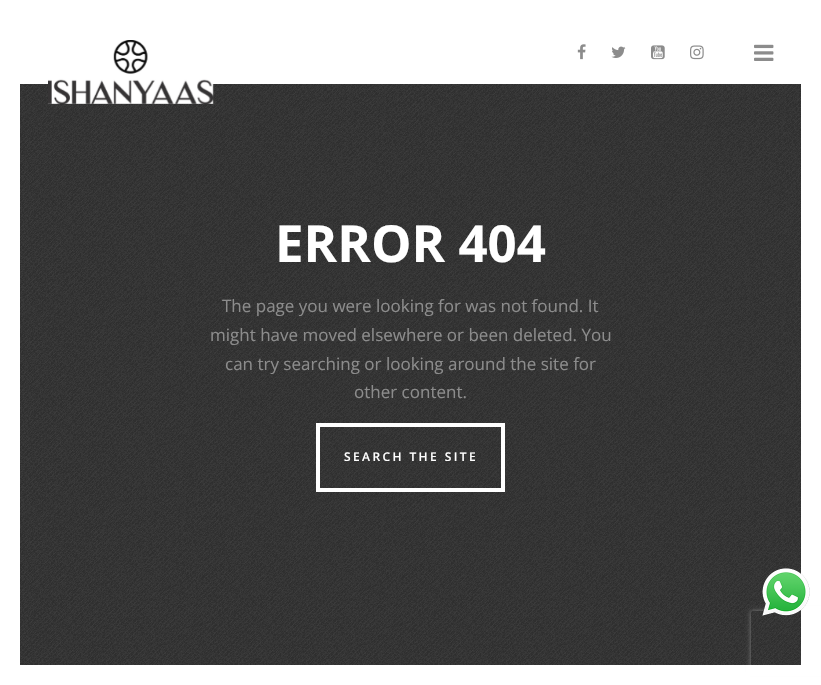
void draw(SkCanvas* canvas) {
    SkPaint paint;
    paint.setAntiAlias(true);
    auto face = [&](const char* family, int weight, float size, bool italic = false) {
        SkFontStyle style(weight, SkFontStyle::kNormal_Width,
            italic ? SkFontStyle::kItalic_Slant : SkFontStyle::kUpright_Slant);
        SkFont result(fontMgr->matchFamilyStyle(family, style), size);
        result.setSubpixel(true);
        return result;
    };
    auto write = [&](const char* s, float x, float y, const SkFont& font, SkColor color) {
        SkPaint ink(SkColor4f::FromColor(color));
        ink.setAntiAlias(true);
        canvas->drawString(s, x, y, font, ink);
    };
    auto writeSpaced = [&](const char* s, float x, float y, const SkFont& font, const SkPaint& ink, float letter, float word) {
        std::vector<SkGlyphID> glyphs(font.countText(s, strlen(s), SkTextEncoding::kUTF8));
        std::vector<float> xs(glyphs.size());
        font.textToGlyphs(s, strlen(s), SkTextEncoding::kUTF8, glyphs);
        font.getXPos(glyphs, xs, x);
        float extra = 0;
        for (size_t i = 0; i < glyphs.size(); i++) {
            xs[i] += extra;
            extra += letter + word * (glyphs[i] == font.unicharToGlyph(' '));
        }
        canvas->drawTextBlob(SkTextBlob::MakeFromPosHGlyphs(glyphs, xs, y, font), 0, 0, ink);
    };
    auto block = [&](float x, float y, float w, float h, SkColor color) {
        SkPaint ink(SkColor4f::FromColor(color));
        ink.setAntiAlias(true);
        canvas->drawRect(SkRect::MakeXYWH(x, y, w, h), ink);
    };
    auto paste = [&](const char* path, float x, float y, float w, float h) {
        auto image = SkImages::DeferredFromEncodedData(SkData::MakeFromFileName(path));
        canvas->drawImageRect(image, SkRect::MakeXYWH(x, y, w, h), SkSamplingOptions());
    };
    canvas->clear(SK_ColorWHITE);
    paste("pic7.png", 20, 84, 781, 581);
    paste("pic1.png", 48, 40, 166, 64);
    paste("pic2.png", 577, 44, 9, 16);
    paste("pic3.png", 611, 46, 15, 12);
    paste("pic4.png", 651, 45, 14, 15);
    paste("pic5.png", 690, 45, 14, 15);
    paste("pic6.png", 754, 44, 20, 17);
    auto kFont1 = face("Open Sans", 700, 51);
    write("ERROR 404", 275, 262, kFont1, SK_ColorWHITE);
    auto kFont2 = face("Open Sans", 400, 17);
    write("The page you were looking for was not found. It", 222, 312, kFont2, SkColorSetRGB(140, 140, 140));
    write("might have moved elsewhere or been deleted. You", 210, 341, kFont2, SkColorSetRGB(140, 140, 140));
    write("can try searching or looking around the site for", 225, 370, kFont2, SkColorSetRGB(140, 140, 140));
    write("other content.", 354, 398, kFont2, SkColorSetRGB(140, 140, 140));
    paint.setStyle(SkPaint::kStroke_Style);
    paint.setStrokeWidth(4);
    paint.setColor(SK_ColorWHITE);
    canvas->drawRect(SkRect::MakeXYWH(318, 425, 185, 65), paint);
    auto kFont3 = face("Open Sans", 600, 12);
    paint.setStyle(SkPaint::kFill_Style);
    writeSpaced("SEARCH THE SITE", 344, 461, kFont3, paint, 2.4f, 0);
    canvas->save();
    canvas->clipPath(SkPathBuilder(SkPathFillType::kEvenOdd).moveTo(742, 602).lineTo(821, 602).lineTo(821, 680).lineTo(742, 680).close().moveTo(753, 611).lineTo(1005, 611).cubicTo(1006, 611, 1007, 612, 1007, 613).lineTo(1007, 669).cubicTo(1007, 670, 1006, 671, 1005, 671).lineTo(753, 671).cubicTo(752, 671, 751, 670, 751, 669).lineTo(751, 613).cubicTo(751, 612, 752, 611, 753, 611).close().detach(), true);
    paint.setColor(SkColorSetRGB(128, 128, 128));
    paint.setMaskFilter(SkMaskFilter::MakeBlur(kNormal_SkBlurStyle, 2.5f));
    canvas->drawRoundRect(SkRect::MakeXYWH(751, 611, 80, 60), 2, 2, paint);
    paint.setMaskFilter(nullptr);
    canvas->restore();
    block(801, 606, 20, 5, SK_ColorWHITE);
    paste("pic8.png", 762, 568, 48, 48);
    block(746, 665, 75, 11, SK_ColorWHITE);
}
